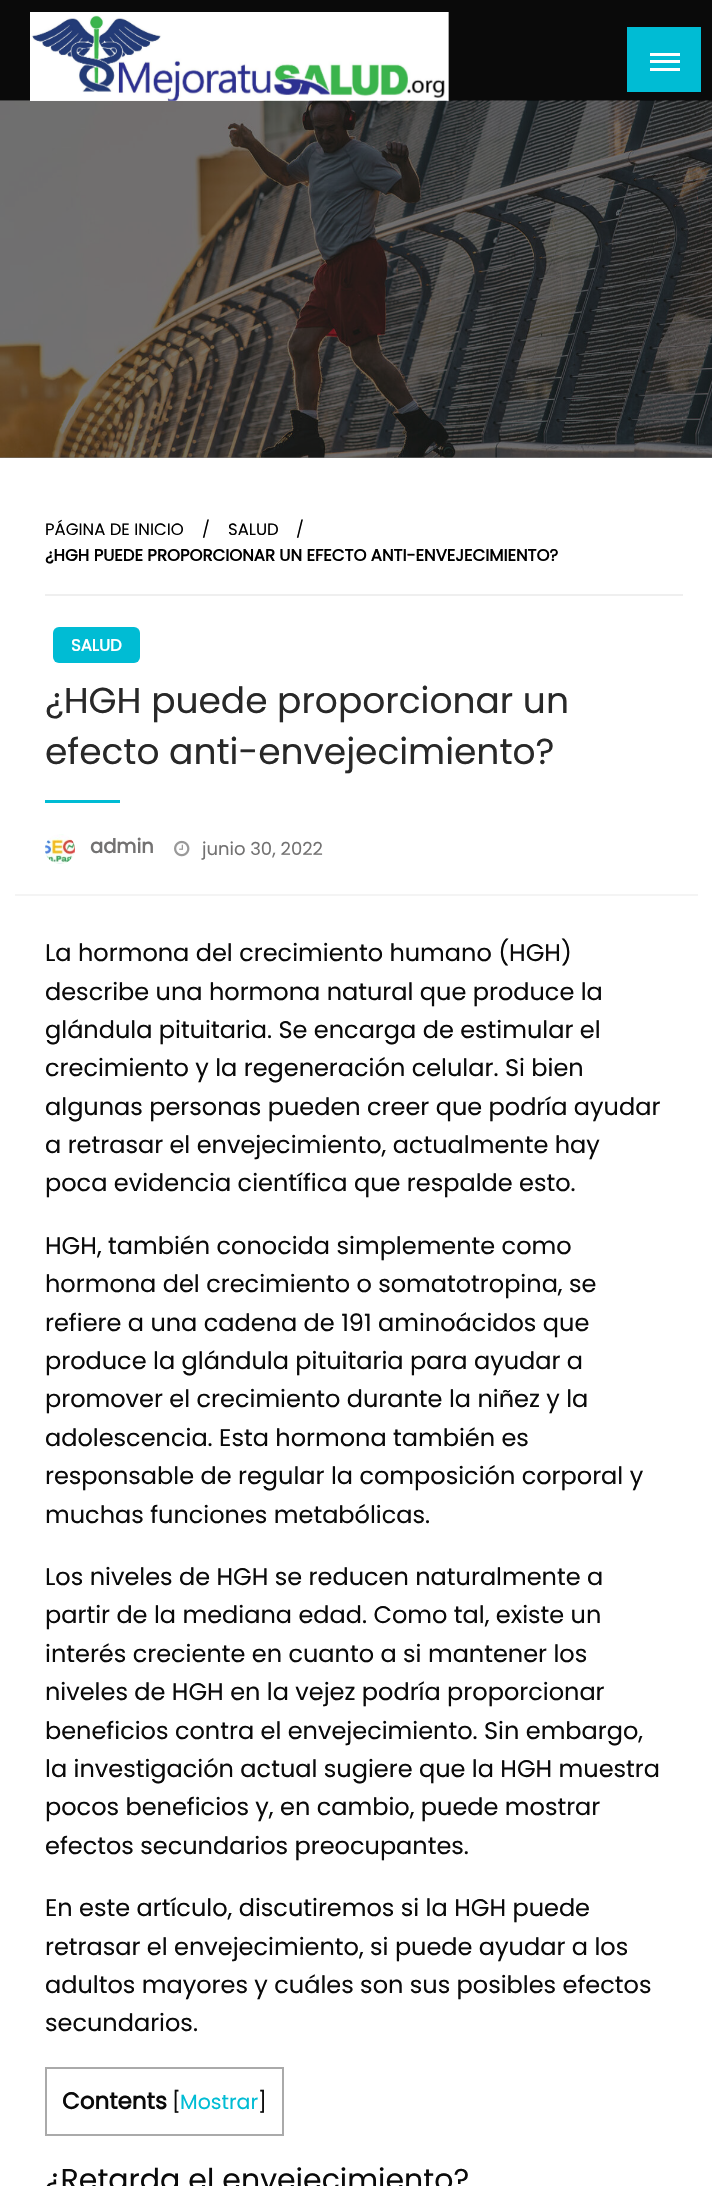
void draw(SkCanvas* canvas) {
    SkPaint paint;
    paint.setAntiAlias(true);
    auto face = [&](const char* family, int weight, float size, bool italic = false) {
        SkFontStyle style(weight, SkFontStyle::kNormal_Width,
            italic ? SkFontStyle::kItalic_Slant : SkFontStyle::kUpright_Slant);
        SkFont result(fontMgr->matchFamilyStyle(family, style), size);
        result.setSubpixel(true);
        return result;
    };
    auto write = [&](const char* s, float x, float y, const SkFont& font, SkColor color) {
        SkPaint ink(SkColor4f::FromColor(color));
        ink.setAntiAlias(true);
        canvas->drawString(s, x, y, font, ink);
    };
    auto block = [&](float x, float y, float w, float h, SkColor color) {
        SkPaint ink(SkColor4f::FromColor(color));
        ink.setAntiAlias(true);
        canvas->drawRect(SkRect::MakeXYWH(x, y, w, h), ink);
    };
    auto card = [&](float x, float y, float w, float h, float radius, SkColor color) {
        SkPaint ink(SkColor4f::FromColor(color));
        ink.setAntiAlias(true);
        canvas->drawRoundRect(SkRect::MakeXYWH(x, y, w, h), radius, radius, ink);
    };
    auto paste = [&](const char* path, float x, float y, float w, float h) {
        auto image = SkImages::DeferredFromEncodedData(SkData::MakeFromFileName(path));
        canvas->drawImageRect(image, SkRect::MakeXYWH(x, y, w, h), SkSamplingOptions());
    };
    canvas->clear(SkColorSetRGB(10, 10, 10));
    paste("pic1.png", 30, 12, 419, 89);
    block(627, 27, 74, 65, SkColorSetRGB(0, 188, 212));
    block(650, 53, 30, 3, SK_ColorWHITE);
    block(650, 60, 30, 3, SK_ColorWHITE);
    block(650, 68, 30, 3, SK_ColorWHITE);
    block(0, 458, 712, 1728, SK_ColorWHITE);
    block(0, 457, 712, 1, SkColorSetRGB(119, 119, 119));
    paste("pic2.png", 0, 100, 712, 358);
    block(15, 894, 683, 2, SkColorSetRGB(244, 244, 244));
    block(45, 594, 638, 2, SkColorSetRGB(239, 239, 239));
    auto kFont1 = face("Poppins", 400, 16.5f);
    write("PÁGINA DE INICIO", 45, 535, kFont1, SK_ColorBLACK);
    write("/", 202, 535, kFont1, SK_ColorBLACK);
    write("SALUD", 228, 535, kFont1, SK_ColorBLACK);
    write("/", 296, 535, kFont1, SK_ColorBLACK);
    auto kFont2 = face("Poppins", 700, 16.5f);
    write("¿HGH PUEDE PROPORCIONAR UN EFECTO ANTI-ENVEJECIMIENTO?", 45, 561, kFont2, SK_ColorBLACK);
    card(53, 627, 87, 36, 6, SkColorSetRGB(0, 188, 212));
    write("SALUD", 71, 651, kFont2, SK_ColorWHITE);
    auto kFont3 = face("Poppins", 400, 36);
    write("¿HGH puede proporcionar un", 45, 713, kFont3, SkColorSetRGB(40, 40, 40));
    write("efecto anti-envejecimiento?", 45, 764, kFont3, SkColorSetRGB(40, 40, 40));
    block(45, 800, 75, 3, SkColorSetRGB(0, 188, 212));
    paste("pic3.png", 45, 834, 30, 30);
    auto kFont4 = face("Poppins", 700, 19.5f);
    write("admin", 90, 853, kFont4, SkColorSetRGB(115, 114, 114));
    paste("pic4.png", 174, 840, 16, 17);
    auto kFont5 = face("Poppins", 400, 18);
    write("junio 30, 2022", 202, 855, kFont5, SkColorSetRGB(115, 114, 114));
    auto kFont6 = face("Poppins", 400, 24);
    write("La hormona del crecimiento humano (HGH)", 45, 961, kFont6, SkColorSetRGB(10, 10, 10));
    write("describe una hormona natural que produce la", 45, 1000, kFont6, SkColorSetRGB(10, 10, 10));
    write("glándula pituitaria. Se encarga de estimular el", 45, 1038, kFont6, SkColorSetRGB(10, 10, 10));
    write("crecimiento y la regeneración celular. Si bien", 45, 1076, kFont6, SkColorSetRGB(10, 10, 10));
    write("algunas personas pueden creer que podría ayudar", 45, 1115, kFont6, SkColorSetRGB(10, 10, 10));
    write("a retrasar el envejecimiento, actualmente hay", 45, 1153, kFont6, SkColorSetRGB(10, 10, 10));
    write("poca evidencia científica que respalde esto.", 45, 1191, kFont6, SkColorSetRGB(10, 10, 10));
    write("HGH, también conocida simplemente como", 45, 1254, kFont6, SkColorSetRGB(10, 10, 10));
    write("hormona del crecimiento o somatotropina, se", 45, 1292, kFont6, SkColorSetRGB(10, 10, 10));
    write("refiere a una cadena de 191 aminoácidos que", 45, 1331, kFont6, SkColorSetRGB(10, 10, 10));
    write("produce la glándula pituitaria para ayudar a", 45, 1369, kFont6, SkColorSetRGB(10, 10, 10));
    write("promover el crecimiento durante la niñez y la", 45, 1407, kFont6, SkColorSetRGB(10, 10, 10));
    write("adolescencia. Esta hormona también es", 45, 1446, kFont6, SkColorSetRGB(10, 10, 10));
    write("responsable de regular la composición corporal y", 45, 1484, kFont6, SkColorSetRGB(10, 10, 10));
    write("muchas funciones metabólicas.", 45, 1523, kFont6, SkColorSetRGB(10, 10, 10));
    write("Los niveles de HGH se reducen naturalmente a", 45, 1585, kFont6, SkColorSetRGB(10, 10, 10));
    write("partir de la mediana edad. Como tal, existe un", 45, 1623, kFont6, SkColorSetRGB(10, 10, 10));
    write("interés creciente en cuanto a si mantener los", 45, 1662, kFont6, SkColorSetRGB(10, 10, 10));
    write("niveles de HGH en la vejez podría proporcionar", 45, 1700, kFont6, SkColorSetRGB(10, 10, 10));
    write("beneficios contra el envejecimiento. Sin embargo,", 45, 1739, kFont6, SkColorSetRGB(10, 10, 10));
    write("la investigación actual sugiere que la HGH muestra", 45, 1777, kFont6, SkColorSetRGB(10, 10, 10));
    write("pocos beneficios y, en cambio, puede mostrar", 45, 1815, kFont6, SkColorSetRGB(10, 10, 10));
    write("efectos secundarios preocupantes.", 45, 1854, kFont6, SkColorSetRGB(10, 10, 10));
    write("En este artículo, discutiremos si la HGH puede", 45, 1916, kFont6, SkColorSetRGB(10, 10, 10));
    write("retrasar el envejecimiento, si puede ayudar a los", 45, 1955, kFont6, SkColorSetRGB(10, 10, 10));
    write("adultos mayores y cuáles son sus posibles efectos", 45, 1993, kFont6, SkColorSetRGB(10, 10, 10));
    write("secundarios.", 45, 2031, kFont6, SkColorSetRGB(10, 10, 10));
    paint.setStyle(SkPaint::kStroke_Style);
    paint.setStrokeWidth(2);
    paint.setColor(SkColorSetRGB(170, 170, 170));
    canvas->drawRect(SkRect::MakeXYWH(46, 2068, 237, 67), paint);
    auto kFont7 = face("Poppins", 700, 23);
    write("Contents", 62, 2109, kFont7, SkColorSetRGB(10, 10, 10));
    auto kFont8 = face("Poppins", 400, 20.5f);
    write("[", 172, 2109, kFont8, SkColorSetRGB(10, 10, 10));
    write("Mostrar", 180, 2109, kFont8, SkColorSetRGB(0, 188, 212));
    write("]", 258, 2109, kFont8, SkColorSetRGB(10, 10, 10));
    auto kFont9 = face("Poppins", 400, 30);
    write("¿Retarda el envejecimiento?", 45, 2190, kFont9, SkColorSetRGB(10, 10, 10));
}
